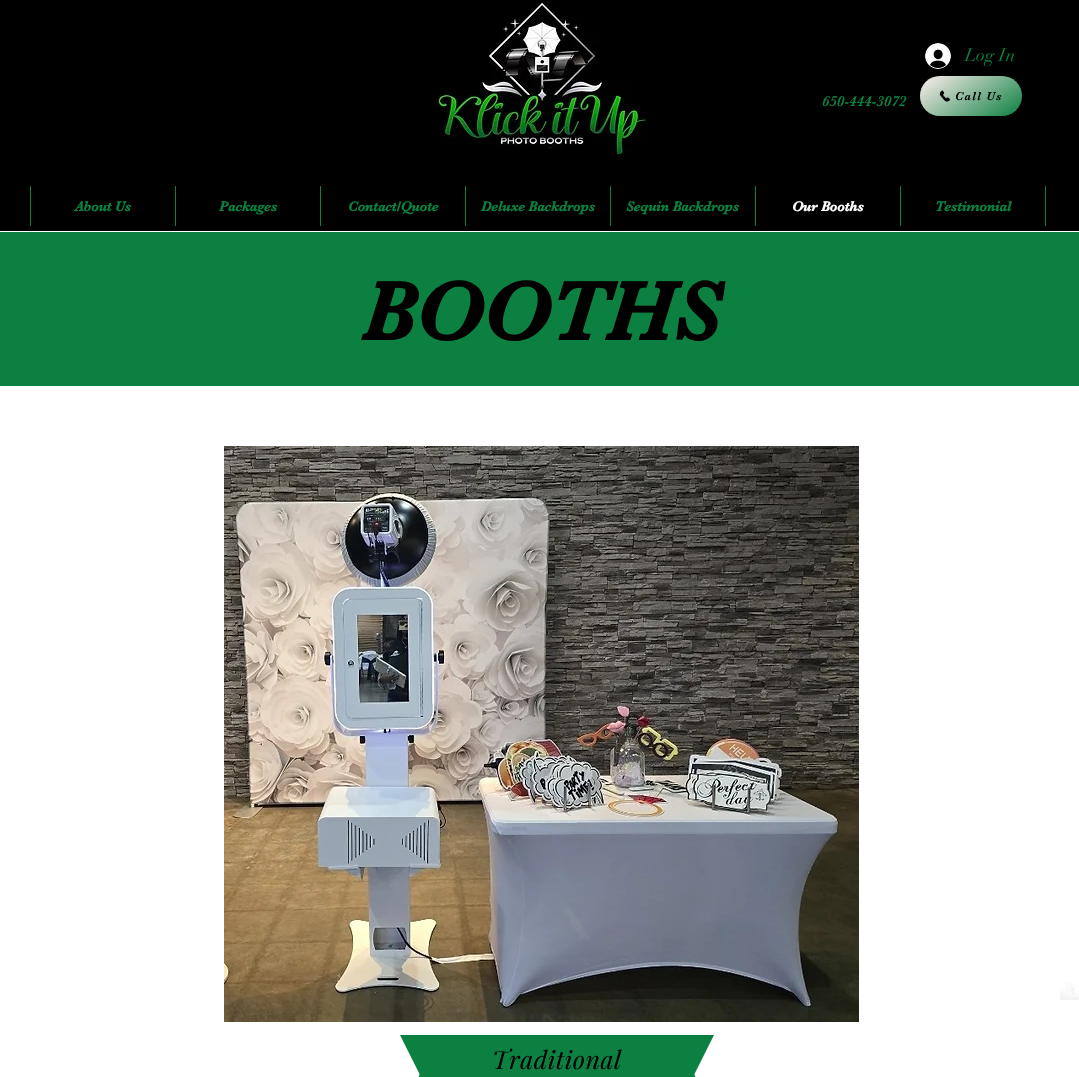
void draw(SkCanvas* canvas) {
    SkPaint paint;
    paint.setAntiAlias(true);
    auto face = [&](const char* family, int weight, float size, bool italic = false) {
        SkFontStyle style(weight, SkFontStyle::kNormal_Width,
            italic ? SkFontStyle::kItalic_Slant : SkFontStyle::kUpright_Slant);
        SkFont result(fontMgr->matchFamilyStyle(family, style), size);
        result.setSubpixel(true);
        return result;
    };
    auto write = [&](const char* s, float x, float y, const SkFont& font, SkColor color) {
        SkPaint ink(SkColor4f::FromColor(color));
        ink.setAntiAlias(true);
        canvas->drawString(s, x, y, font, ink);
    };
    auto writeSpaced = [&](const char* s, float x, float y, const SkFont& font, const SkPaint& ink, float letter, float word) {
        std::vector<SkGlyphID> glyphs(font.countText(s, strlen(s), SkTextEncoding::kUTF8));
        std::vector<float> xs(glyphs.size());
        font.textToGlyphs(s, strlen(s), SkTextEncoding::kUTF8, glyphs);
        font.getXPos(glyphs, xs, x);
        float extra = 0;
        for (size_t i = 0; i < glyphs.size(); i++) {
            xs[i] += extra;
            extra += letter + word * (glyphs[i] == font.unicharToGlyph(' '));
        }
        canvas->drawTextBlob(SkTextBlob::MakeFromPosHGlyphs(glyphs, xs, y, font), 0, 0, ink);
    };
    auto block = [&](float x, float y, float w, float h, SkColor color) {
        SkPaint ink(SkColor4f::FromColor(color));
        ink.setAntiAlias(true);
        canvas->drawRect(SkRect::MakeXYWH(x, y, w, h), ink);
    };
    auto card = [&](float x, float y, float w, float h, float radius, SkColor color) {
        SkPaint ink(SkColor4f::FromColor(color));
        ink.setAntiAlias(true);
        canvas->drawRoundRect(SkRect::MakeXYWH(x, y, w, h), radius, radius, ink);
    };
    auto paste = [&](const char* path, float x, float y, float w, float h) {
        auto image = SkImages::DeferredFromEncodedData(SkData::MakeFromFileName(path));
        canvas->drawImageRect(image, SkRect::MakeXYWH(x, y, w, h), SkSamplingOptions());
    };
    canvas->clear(SK_ColorBLACK);
    paste("pic1.png", 432, 2, 216, 152);
    paste("pic2.png", 925, 43, 26, 26);
    auto kFont1 = face("didot", 400, 18);
    write("Log In", 965, 61, kFont1, SkColorSetRGB(11, 128, 64));
    auto kFont2 = face("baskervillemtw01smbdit", 400, 15);
    write("650-444-3072", 822, 106, kFont2, SkColorSetRGB(11, 128, 64));
    card(920, 76, 102, 40, 20, SkColorSetRGB(11, 128, 64));
    {
        const SkColor colors[] = {SkColorSetRGB(255, 238, 238), SkColorSetARGB(0, 255, 238, 238)};
        const float stops[] = {0, 1};
        const SkPoint ends[] = {{945, 59}, {997, 133}};
        paint.setShader(SkGradientShader::MakeLinear(ends, colors, stops, 2, SkTileMode::kClamp));
        paint.setAlpha(255);
    }
    canvas->drawRoundRect(SkRect::MakeXYWH(920, 76, 102, 40), 20, 20, paint);
    paste("pic3.png", 939, 90, 12, 12);
    auto kFont3 = face("baskervillemtw01smbdit", 400, 12);
    paint.setShader(nullptr);
    paint.setColor(SK_ColorBLACK);
    writeSpaced("Call Us", 955, 100, kFont3, paint, 1.25f, 0);
    block(30, 186, 1, 40, SkColorSetRGB(11, 128, 64));
    auto kFont4 = face("baskervillemtw01smbdit", 700, 14);
    write("About Us", 75, 211, kFont4, SkColorSetRGB(11, 128, 64));
    block(175, 186, 1, 40, SkColorSetRGB(11, 128, 64));
    write("Packages", 219, 211, kFont4, SkColorSetRGB(11, 128, 64));
    block(320, 186, 1, 40, SkColorSetRGB(11, 128, 64));
    write("Contact/Quote", 348, 211, kFont4, SkColorSetRGB(11, 128, 64));
    block(465, 186, 1, 40, SkColorSetRGB(11, 128, 64));
    write("Deluxe Backdrops", 481, 211, kFont4, SkColorSetRGB(11, 128, 64));
    block(610, 186, 1, 40, SkColorSetRGB(11, 128, 64));
    write("Sequin Backdrops", 626, 211, kFont4, SkColorSetRGB(11, 128, 64));
    block(755, 186, 1, 40, SkColorSetRGB(11, 128, 64));
    write("Our Booths", 792, 211, kFont4, SK_ColorWHITE);
    block(900, 186, 1, 40, SkColorSetRGB(11, 128, 64));
    write("Testimonial", 935, 211, kFont4, SkColorSetRGB(11, 128, 64));
    block(1045, 186, 1, 40, SkColorSetRGB(11, 128, 64));
    block(0, 231, 1079, 1, SK_ColorWHITE);
    block(0, 232, 1079, 154, SkColorSetRGB(11, 128, 64));
    auto kFont5 = face("baskervillemtw01smbdit", 700, 85);
    write("BOOTHS", 361, 340, kFont5, SK_ColorBLACK);
    block(0, 386, 1079, 691, SK_ColorWHITE);
    paste("pic4.png", 224, 446, 635, 576);
    paste("pic5.png", 1060, 983, 19, 17);
    canvas->save();
    canvas->clipRect(SkRect::MakeXYWH(400, 1035, 157, 40));
    paint.setColor(SkColorSetRGB(11, 128, 64));
    canvas->drawPath(SkPathBuilder().moveTo(400, 1035).lineTo(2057, 1035).lineTo(1057, 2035).lineTo(900, 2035).close().detach(), paint);
    canvas->restore();
    canvas->save();
    canvas->clipRect(SkRect::MakeXYWH(556, 1035, 158, 40));
    canvas->drawPath(SkPathBuilder().moveTo(-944, 1035).lineTo(714, 1035).lineTo(214, 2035).lineTo(56, 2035).close().detach(), paint);
    canvas->restore();
    auto kFont6 = face("Playfair Display", 400, 25, true);
    paint.setColor(SK_ColorBLACK);
    writeSpaced("Traditional", 492, 1069, kFont6, paint, 0.5f, 0);
    canvas->save();
    canvas->clipRect(SkRect::MakeXYWH(400, 1074, 157, 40));
    paint.setColor(SkColorSetRGB(11, 128, 64));
    canvas->drawPath(SkPathBuilder().moveTo(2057, 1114).lineTo(400, 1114).lineTo(900, 114).lineTo(1057, 114).close().detach(), paint);
    canvas->restore();
    canvas->save();
    canvas->clipRect(SkRect::MakeXYWH(556, 1074, 158, 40));
    canvas->drawPath(SkPathBuilder().moveTo(714, 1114).lineTo(-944, 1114).lineTo(56, 114).lineTo(214, 114).close().detach(), paint);
    canvas->restore();
}
